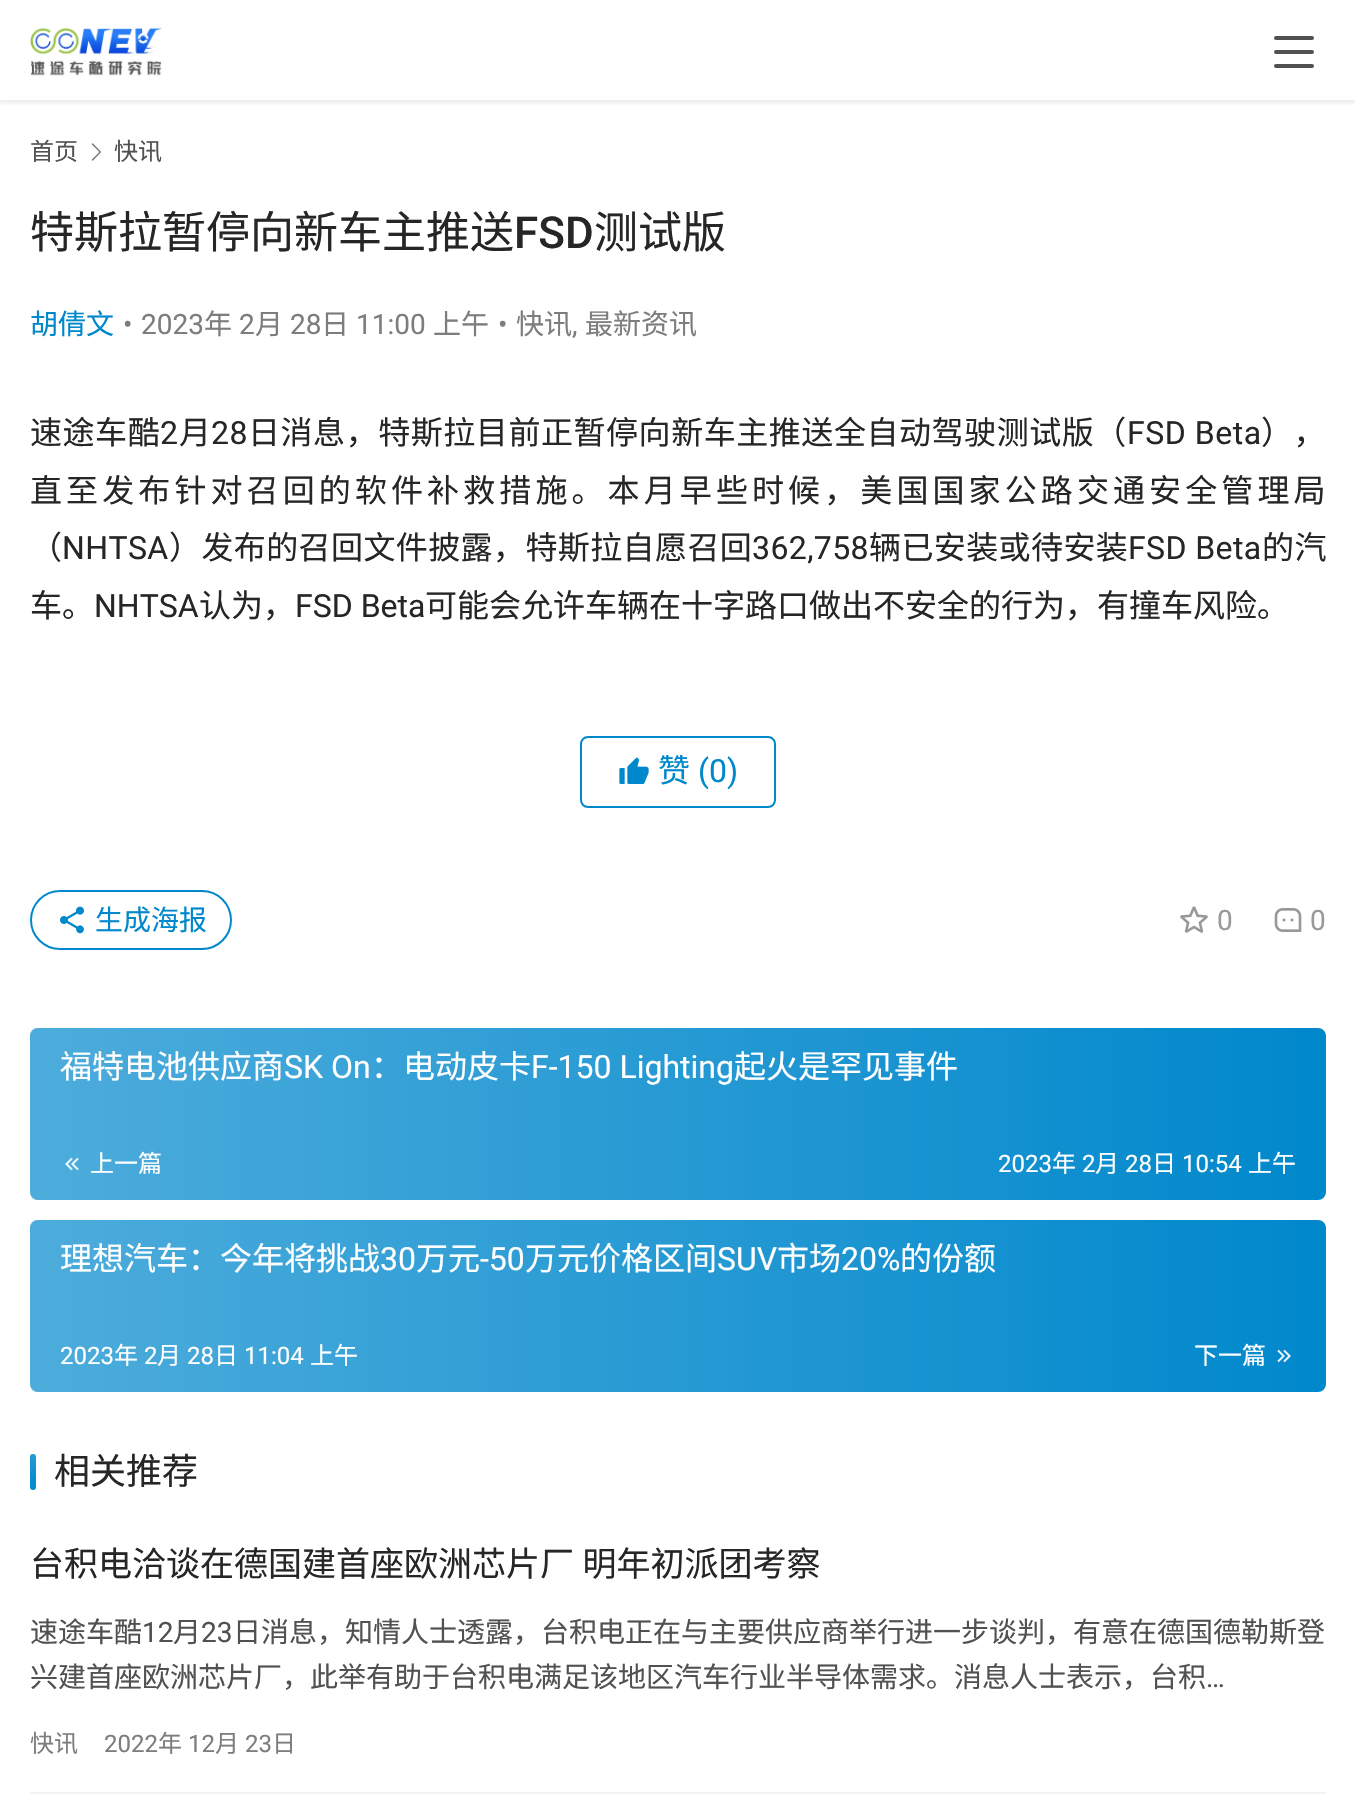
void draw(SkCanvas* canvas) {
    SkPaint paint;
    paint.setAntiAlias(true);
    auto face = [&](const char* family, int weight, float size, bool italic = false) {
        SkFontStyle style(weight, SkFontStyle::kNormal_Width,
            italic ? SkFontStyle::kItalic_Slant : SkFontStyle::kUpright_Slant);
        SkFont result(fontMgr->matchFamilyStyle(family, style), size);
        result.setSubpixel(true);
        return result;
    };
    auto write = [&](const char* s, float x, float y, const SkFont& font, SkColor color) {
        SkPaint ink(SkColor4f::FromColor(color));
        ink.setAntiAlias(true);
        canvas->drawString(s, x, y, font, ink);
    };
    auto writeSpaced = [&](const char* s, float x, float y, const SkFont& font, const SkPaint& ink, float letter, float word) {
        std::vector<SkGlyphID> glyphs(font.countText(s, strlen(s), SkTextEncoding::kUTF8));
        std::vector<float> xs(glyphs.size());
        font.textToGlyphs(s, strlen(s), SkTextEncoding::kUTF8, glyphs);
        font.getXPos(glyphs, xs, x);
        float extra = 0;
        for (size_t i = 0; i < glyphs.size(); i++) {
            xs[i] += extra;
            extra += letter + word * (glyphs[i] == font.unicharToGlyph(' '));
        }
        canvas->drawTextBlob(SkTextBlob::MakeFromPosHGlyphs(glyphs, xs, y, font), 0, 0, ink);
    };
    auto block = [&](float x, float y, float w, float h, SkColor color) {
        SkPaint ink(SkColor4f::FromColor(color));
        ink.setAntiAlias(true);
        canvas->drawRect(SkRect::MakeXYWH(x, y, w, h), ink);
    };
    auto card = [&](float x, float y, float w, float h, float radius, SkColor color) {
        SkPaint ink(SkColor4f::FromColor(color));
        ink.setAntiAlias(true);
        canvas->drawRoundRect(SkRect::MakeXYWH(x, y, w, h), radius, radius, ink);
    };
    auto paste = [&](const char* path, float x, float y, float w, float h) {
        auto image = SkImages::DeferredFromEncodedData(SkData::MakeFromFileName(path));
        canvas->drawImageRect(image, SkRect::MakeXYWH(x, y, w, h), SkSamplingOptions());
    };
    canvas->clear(SK_ColorWHITE);
    canvas->save();
    canvas->clipRect(SkRect::MakeXYWH(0, 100, 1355, 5));
    paint.setColor(SkColorSetARGB(26, 0, 0, 0));
    paint.setMaskFilter(SkMaskFilter::MakeBlur(kNormal_SkBlurStyle, 3));
    canvas->drawRect(SkRect::MakeXYWH(-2, -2, 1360, 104), paint);
    paint.setMaskFilter(nullptr);
    canvas->restore();
    paste("pic1.png", 30, 27, 132, 49);
    card(1274, 36, 40, 4, 2, SkColorSetRGB(81, 81, 81));
    card(1274, 50, 40, 4, 2, SkColorSetRGB(81, 81, 81));
    card(1274, 64, 40, 4, 2, SkColorSetRGB(81, 81, 81));
    auto kFont1 = face("Noto Sans CJK SC", 400, 24);
    write("首页", 30, 160, kFont1, SkColorSetRGB(81, 81, 81));
    paste("pic2.png", 91, 143, 10, 18);
    write("快讯", 114, 160, kFont1, SkColorSetRGB(81, 81, 81));
    auto kFont2 = face("Noto Sans CJK SC", 400, 44);
    write("特斯拉暂停向新车主推送", 30, 248, kFont2, SkColorSetRGB(38, 38, 38));
    auto kFont3 = face("Roboto", 500, 44);
    write("FSD", 514, 248, kFont3, SkColorSetRGB(38, 38, 38));
    write("测试版", 594, 248, kFont2, SkColorSetRGB(38, 38, 38));
    auto kFont4 = face("Noto Sans CJK SC", 400, 28);
    write("胡倩文", 30, 334, kFont4, SkColorSetRGB(0, 136, 204));
    auto kFont5 = face("Roboto", 400, 28);
    write("•", 123, 334, kFont5, SkColorSetRGB(125, 125, 125));
    write("2023", 141, 334, kFont5, SkColorSetRGB(125, 125, 125));
    write("年", 204, 334, kFont4, SkColorSetRGB(125, 125, 125));
    write("2", 239, 334, kFont5, SkColorSetRGB(125, 125, 125));
    write("月", 255, 334, kFont4, SkColorSetRGB(125, 125, 125));
    write("28", 290, 334, kFont5, SkColorSetRGB(125, 125, 125));
    write("日", 321, 334, kFont4, SkColorSetRGB(125, 125, 125));
    write("11:00", 356, 334, kFont5, SkColorSetRGB(125, 125, 125));
    write("上午", 433, 334, kFont4, SkColorSetRGB(125, 125, 125));
    write("•", 498, 334, kFont5, SkColorSetRGB(125, 125, 125));
    write("快讯", 516, 334, kFont4, SkColorSetRGB(125, 125, 125));
    write("最新资讯", 585, 334, kFont4, SkColorSetRGB(125, 125, 125));
    write(",", 572, 334, kFont5, SkColorSetRGB(125, 125, 125));
    auto kFont6 = face("Noto Sans CJK SC", 400, 32);
    paint.setColor(SkColorSetRGB(38, 38, 38));
    writeSpaced("速途车酷", 30, 444, kFont6, paint, 0.55f, 0);
    auto kFont7 = face("Roboto", 400, 32);
    writeSpaced("2", 160, 444, kFont7, paint, 0.55f, 0);
    writeSpaced("月", 179, 444, kFont6, paint, 0.55f, 0);
    writeSpaced("28", 211, 444, kFont7, paint, 0.55f, 0);
    writeSpaced("日消息，特斯拉目前正暂停向新车主推送全自动驾驶测试版（", 248, 444, kFont6, paint, 0.55f, 0);
    writeSpaced("FSD Beta", 1127, 444, kFont7, paint, 0.55f, 0);
    writeSpaced("），", 1261, 444, kFont6, paint, 0.55f, 0);
    writeSpaced("直至发布针对召回的软件补救措施。本月早些时候，美国国家公路交通安全管理局", 30, 502, kFont6, paint, 4.1f, 0);
    writeSpaced("（", 30, 559, kFont6, paint, 0.4f, 0);
    writeSpaced("NHTSA", 62, 559, kFont7, paint, 0.4f, 0);
    writeSpaced("）发布的召回文件披露，特斯拉自愿召回", 169, 559, kFont6, paint, 0.4f, 0);
    writeSpaced("362,758", 752, 559, kFont7, paint, 0.4f, 0);
    writeSpaced("辆已安装或待安装", 869, 559, kFont6, paint, 0.4f, 0);
    writeSpaced("FSD Beta", 1128, 559, kFont7, paint, 0.4f, 0);
    writeSpaced("的汽", 1262, 559, kFont6, paint, 0.4f, 0);
    write("车。", 30, 617, kFont6, SkColorSetRGB(38, 38, 38));
    write("NHTSA", 94, 617, kFont7, SkColorSetRGB(38, 38, 38));
    write("认为，", 199, 617, kFont6, SkColorSetRGB(38, 38, 38));
    write("FSD Beta", 295, 617, kFont7, SkColorSetRGB(38, 38, 38));
    write("可能会允许车辆在十字路口做出不安全的行为，有撞车风险。", 425, 617, kFont6, SkColorSetRGB(38, 38, 38));
    paint.setStyle(SkPaint::kStroke_Style);
    paint.setStrokeWidth(2);
    paint.setColor(SkColorSetRGB(0, 136, 204));
    canvas->drawRoundRect(SkRect::MakeXYWH(581, 737, 194, 70), 7, 7, paint);
    paste("pic3.png", 619, 757, 30, 27);
    write("赞", 658, 782, kFont6, SkColorSetRGB(0, 136, 204));
    write("(0)", 698, 782, kFont7, SkColorSetRGB(0, 136, 204));
    canvas->drawRoundRect(SkRect::MakeXYWH(31, 891, 200, 58), 29, 29, paint);
    paste("pic4.png", 60, 906, 24, 28);
    write("生成海报", 95, 930, kFont4, SkColorSetRGB(0, 136, 204));
    paste("pic5.png", 1180, 906, 28, 27);
    write("0", 1217, 930, kFont5, SkColorSetRGB(153, 153, 153));
    paste("pic6.png", 1274, 908, 28, 24);
    write("0", 1310, 930, kFont5, SkColorSetRGB(153, 153, 153));
    card(30, 1028, 1296, 172, 8, SkColorSetRGB(0, 136, 204));
    paint.setStyle(SkPaint::kFill_Style);
    {
        const SkColor colors[] = {SkColorSetARGB(77, 255, 255, 255), SkColorSetARGB(0, 255, 255, 255)};
        const float stops[] = {0, 1};
        const SkPoint ends[] = {{30, 1114}, {1326, 1114}};
        paint.setShader(SkGradientShader::MakeLinear(ends, colors, stops, 2, SkTileMode::kClamp));
        paint.setAlpha(255);
    }
    canvas->drawRoundRect(SkRect::MakeXYWH(30, 1028, 1296, 172), 8, 8, paint);
    write("福特电池供应商", 60, 1078, kFont6, SK_ColorWHITE);
    write("SK On", 284, 1078, kFont7, SK_ColorWHITE);
    write("：电动皮卡", 371, 1078, kFont6, SK_ColorWHITE);
    write("F-150 Lighting", 531, 1078, kFont7, SK_ColorWHITE);
    write("起火是罕见事件", 734, 1078, kFont6, SK_ColorWHITE);
    paste("pic7.png", 65, 1157, 14, 14);
    write("上一篇", 90, 1172, kFont1, SK_ColorWHITE);
    auto kFont8 = face("Roboto", 400, 24);
    write("2023", 998, 1172, kFont8, SK_ColorWHITE);
    write("年", 1052, 1172, kFont1, SK_ColorWHITE);
    write("2", 1082, 1172, kFont8, SK_ColorWHITE);
    write("月", 1095, 1172, kFont1, SK_ColorWHITE);
    write("28", 1125, 1172, kFont8, SK_ColorWHITE);
    write("日", 1152, 1172, kFont1, SK_ColorWHITE);
    write("10:54", 1182, 1172, kFont8, SK_ColorWHITE);
    write("上午", 1248, 1172, kFont1, SK_ColorWHITE);
    card(30, 1220, 1296, 172, 8, SkColorSetRGB(0, 136, 204));
    {
        const SkColor colors[] = {SkColorSetARGB(77, 255, 255, 255), SkColorSetARGB(0, 255, 255, 255)};
        const float stops[] = {0, 1};
        const SkPoint ends[] = {{30, 1306}, {1326, 1306}};
        paint.setShader(SkGradientShader::MakeLinear(ends, colors, stops, 2, SkTileMode::kClamp));
        paint.setAlpha(255);
    }
    canvas->drawRoundRect(SkRect::MakeXYWH(30, 1220, 1296, 172), 8, 8, paint);
    write("理想汽车：今年将挑战", 60, 1270, kFont6, SK_ColorWHITE);
    write("30", 380, 1270, kFont7, SK_ColorWHITE);
    write("万元", 416, 1270, kFont6, SK_ColorWHITE);
    write("-50", 480, 1270, kFont7, SK_ColorWHITE);
    write("万元价格区间", 525, 1270, kFont6, SK_ColorWHITE);
    write("SUV", 717, 1270, kFont7, SK_ColorWHITE);
    write("市场", 777, 1270, kFont6, SK_ColorWHITE);
    write("20%", 841, 1270, kFont7, SK_ColorWHITE);
    write("的份额", 900, 1270, kFont6, SK_ColorWHITE);
    write("2023", 60, 1364, kFont8, SK_ColorWHITE);
    write("年", 114, 1364, kFont1, SK_ColorWHITE);
    write("2", 144, 1364, kFont8, SK_ColorWHITE);
    write("月", 157, 1364, kFont1, SK_ColorWHITE);
    write("28", 187, 1364, kFont8, SK_ColorWHITE);
    write("日", 214, 1364, kFont1, SK_ColorWHITE);
    write("11:04", 244, 1364, kFont8, SK_ColorWHITE);
    write("上午", 310, 1364, kFont1, SK_ColorWHITE);
    write("下一篇", 1194, 1364, kFont1, SK_ColorWHITE);
    paste("pic8.png", 1277, 1349, 14, 14);
    card(30, 1454, 6, 36, 3, SkColorSetRGB(0, 136, 204));
    {
        const SkColor colors[] = {SkColorSetARGB(38, 255, 255, 255), SkColorSetARGB(0, 255, 255, 255)};
        const float stops[] = {0, 1};
        const SkPoint ends[] = {{33, 1454}, {33, 1490}};
        paint.setShader(SkGradientShader::MakeLinear(ends, colors, stops, 2, SkTileMode::kClamp));
        paint.setAlpha(255);
    }
    canvas->drawRoundRect(SkRect::MakeXYWH(30, 1454, 6, 36), 3, 3, paint);
    auto kFont9 = face("Noto Sans CJK SC", 400, 36);
    write("相关推荐", 54, 1484, kFont9, SkColorSetRGB(38, 38, 38));
    block(30, 1792, 1296, 2, SkColorSetRGB(244, 244, 244));
    auto kFont10 = face("Noto Sans CJK SC", 400, 34);
    paint.setShader(nullptr);
    paint.setColor(SkColorSetRGB(38, 38, 38));
    writeSpaced("台积电洽谈在德国建首座欧洲芯片厂 明年初派团考察", 30, 1576, kFont10, paint, 0, 1);
    write("速途车酷", 30, 1642, kFont4, SkColorSetRGB(81, 81, 81));
    write("12", 142, 1642, kFont5, SkColorSetRGB(81, 81, 81));
    write("月", 173, 1642, kFont4, SkColorSetRGB(81, 81, 81));
    write("23", 201, 1642, kFont5, SkColorSetRGB(81, 81, 81));
    write("日消息，知情人士透露，台积电正在与主要供应商举行进一步谈判，有意在德国德勒斯登", 233, 1642, kFont4, SkColorSetRGB(81, 81, 81));
    write("兴建首座欧洲芯片厂，此举有助于台积电满足该地区汽车行业半导体需求。消息人士表示，台积", 30, 1687, kFont4, SkColorSetRGB(81, 81, 81));
    write("…", 1206, 1687, kFont5, SkColorSetRGB(81, 81, 81));
    write("快讯", 30, 1752, kFont1, SkColorSetRGB(125, 125, 125));
    write("2022", 104, 1752, kFont8, SkColorSetRGB(125, 125, 125));
    write("年", 158, 1752, kFont1, SkColorSetRGB(125, 125, 125));
    write("12", 188, 1752, kFont8, SkColorSetRGB(125, 125, 125));
    write("月", 215, 1752, kFont1, SkColorSetRGB(125, 125, 125));
    write("23", 245, 1752, kFont8, SkColorSetRGB(125, 125, 125));
    write("日", 272, 1752, kFont1, SkColorSetRGB(125, 125, 125));
}
